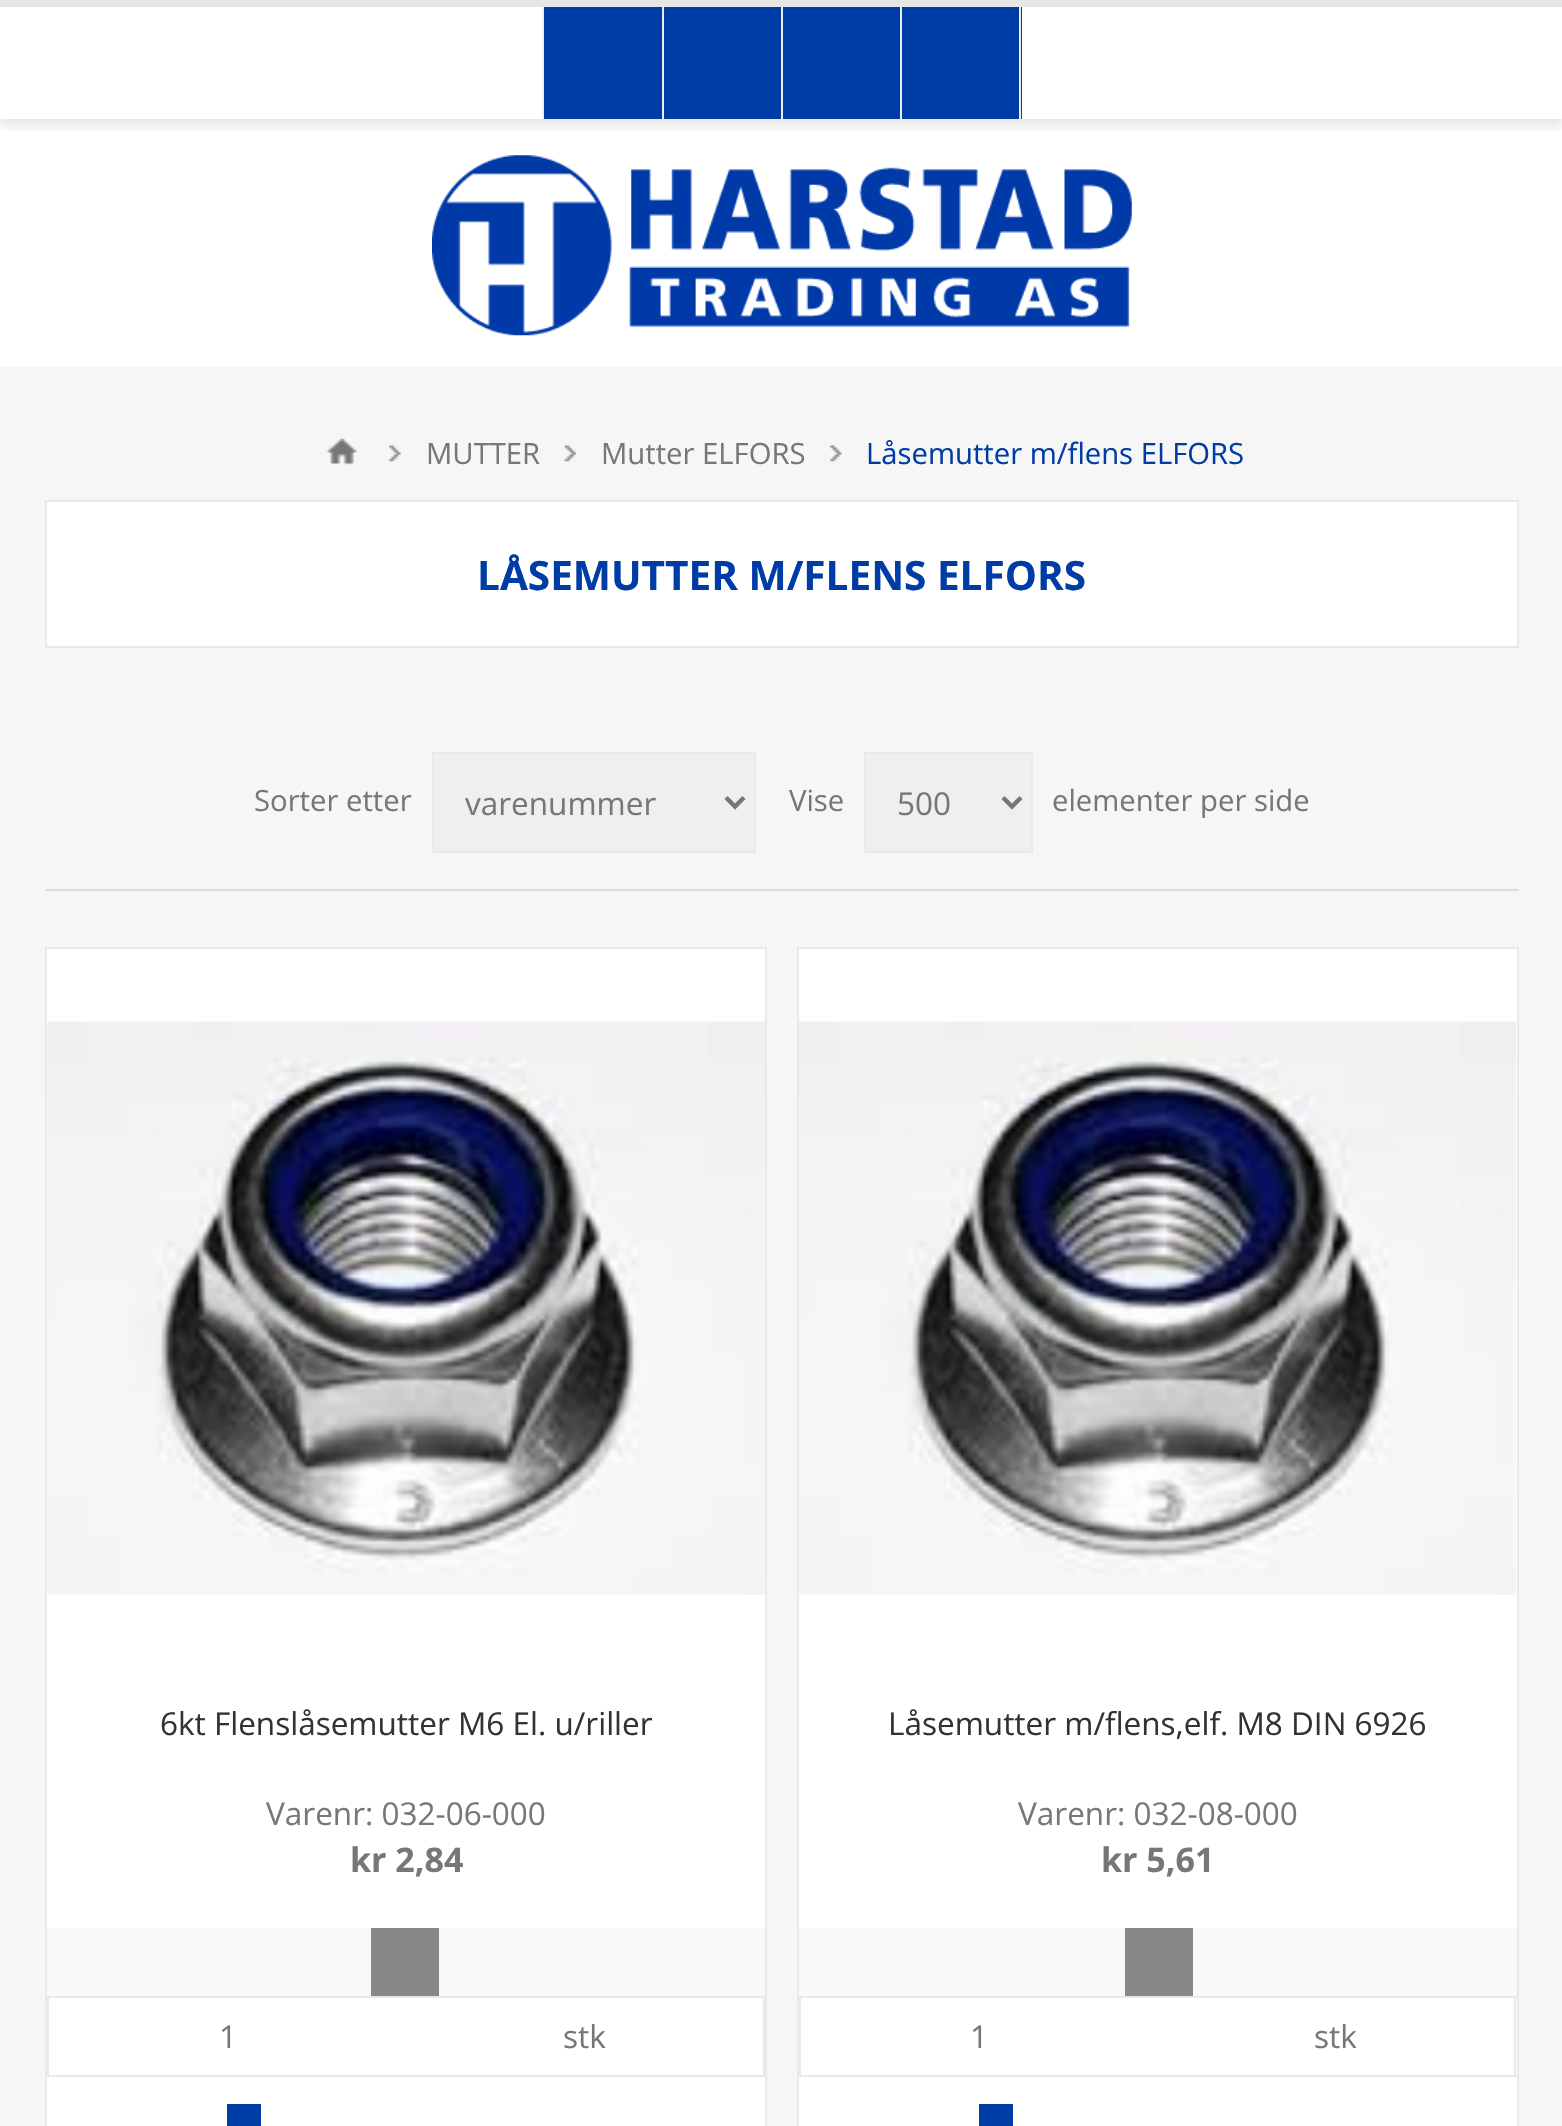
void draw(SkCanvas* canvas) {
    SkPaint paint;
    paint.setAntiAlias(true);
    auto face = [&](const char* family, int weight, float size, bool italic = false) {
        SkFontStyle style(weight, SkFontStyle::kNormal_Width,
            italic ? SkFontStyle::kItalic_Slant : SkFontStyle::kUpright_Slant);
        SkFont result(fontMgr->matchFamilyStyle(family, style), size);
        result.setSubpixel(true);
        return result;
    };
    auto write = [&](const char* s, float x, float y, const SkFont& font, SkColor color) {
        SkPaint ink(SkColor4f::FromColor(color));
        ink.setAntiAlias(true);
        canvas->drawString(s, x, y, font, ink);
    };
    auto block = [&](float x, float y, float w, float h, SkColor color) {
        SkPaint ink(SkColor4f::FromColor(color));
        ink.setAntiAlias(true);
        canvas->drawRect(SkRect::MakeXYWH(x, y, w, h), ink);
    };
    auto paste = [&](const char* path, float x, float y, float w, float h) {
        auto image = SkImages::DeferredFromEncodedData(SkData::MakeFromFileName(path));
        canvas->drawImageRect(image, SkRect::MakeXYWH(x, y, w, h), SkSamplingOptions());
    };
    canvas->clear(SK_ColorWHITE);
    block(0, 367, 1562, 1759, SkColorSetRGB(246, 246, 246));
    canvas->save();
    canvas->clipRect(SkRect::MakeXYWH(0, 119, 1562, 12));
    paint.setColor(SkColorSetARGB(26, 0, 0, 0));
    paint.setMaskFilter(SkMaskFilter::MakeBlur(kNormal_SkBlurStyle, 5.5f));
    canvas->drawRect(SkRect::MakeXYWH(0, 7, 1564, 119), paint);
    paint.setMaskFilter(nullptr);
    canvas->restore();
    block(0, 0, 1562, 7, SkColorSetRGB(230, 230, 230));
    block(544, 7, 118, 112, SkColorSetRGB(0, 60, 166));
    block(662, 7, 2, 112, SkColorSetRGB(238, 238, 238));
    block(542, 7, 2, 112, SkColorSetRGB(238, 238, 238));
    block(664, 7, 117, 112, SkColorSetRGB(0, 60, 166));
    block(781, 7, 2, 112, SkColorSetRGB(238, 238, 238));
    block(783, 7, 117, 112, SkColorSetRGB(0, 60, 166));
    block(900, 7, 2, 112, SkColorSetRGB(238, 238, 238));
    block(902, 7, 120, 112, SkColorSetRGB(0, 60, 166));
    block(1019, 7, 2, 112, SkColorSetRGB(238, 238, 238));
    paste("pic1.png", 432, 155, 700, 181);
    paste("pic2.png", 326, 438, 32, 27);
    paste("pic3.png", 389, 445, 12, 17);
    auto kFont1 = face("Open Sans", 400, 29.25f);
    write("MUTTER", 426, 464, kFont1, SkColorSetRGB(119, 119, 119));
    paste("pic4.png", 564, 445, 12, 17);
    write("Mutter ELFORS", 601, 464, kFont1, SkColorSetRGB(119, 119, 119));
    paste("pic5.png", 830, 445, 12, 17);
    write("Låsemutter m/flens ELFORS", 866, 464, kFont1, SkColorSetRGB(0, 60, 166));
    paint.setColor(SK_ColorWHITE);
    canvas->drawRect(SkRect::MakeXYWH(46, 501, 1472, 146), paint);
    paint.setStyle(SkPaint::kStroke_Style);
    paint.setStrokeWidth(2);
    paint.setColor(SkColorSetRGB(233, 233, 233));
    canvas->drawRect(SkRect::MakeXYWH(46, 501, 1472, 146), paint);
    auto kFont2 = face("Open Sans", 700, 40.5f);
    write("LÅSEMUTTER M/FLENS ELFORS", 477, 590, kFont2, SkColorSetRGB(0, 60, 166));
    block(45, 889, 1474, 2, SkColorSetRGB(221, 221, 221));
    write("Sorter etter", 254, 811, kFont1, SkColorSetRGB(119, 119, 119));
    paint.setStyle(SkPaint::kFill_Style);
    paint.setColor(SkColorSetRGB(239, 239, 239));
    canvas->drawRect(SkRect::MakeXYWH(433, 753, 322, 99), paint);
    paint.setStyle(SkPaint::kStroke_Style);
    paint.setColor(SkColorSetRGB(233, 233, 233));
    canvas->drawRect(SkRect::MakeXYWH(433, 753, 322, 99), paint);
    paint.setStrokeWidth(4.5f);
    paint.setColor(SkColorSetRGB(119, 119, 119));
    canvas->drawPath(SkPathBuilder().moveTo(726, 797.5f).lineTo(735, 806.5f).lineTo(744, 797.5f).detach(), paint);
    auto kFont3 = face("Open Sans", 400, 31.5f);
    write("varenummer", 465, 815, kFont3, SkColorSetRGB(119, 119, 119));
    write("Vise", 789, 811, kFont1, SkColorSetRGB(119, 119, 119));
    paint.setStyle(SkPaint::kFill_Style);
    paint.setColor(SkColorSetRGB(239, 239, 239));
    canvas->drawRect(SkRect::MakeXYWH(865, 753, 167, 99), paint);
    paint.setStyle(SkPaint::kStroke_Style);
    paint.setStrokeWidth(2);
    paint.setColor(SkColorSetRGB(233, 233, 233));
    canvas->drawRect(SkRect::MakeXYWH(865, 753, 167, 99), paint);
    paint.setStrokeWidth(4.5f);
    paint.setColor(SkColorSetRGB(119, 119, 119));
    canvas->drawPath(SkPathBuilder().moveTo(1003, 797.5f).lineTo(1012, 806.5f).lineTo(1021, 797.5f).detach(), paint);
    write("500", 897, 815, kFont3, SkColorSetRGB(119, 119, 119));
    write("elementer per side", 1052, 811, kFont1, SkColorSetRGB(119, 119, 119));
    paint.setStyle(SkPaint::kFill_Style);
    paint.setColor(SK_ColorWHITE);
    canvas->drawRect(SkRect::MakeXYWH(46, 948, 720, 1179), paint);
    paint.setStyle(SkPaint::kStroke_Style);
    paint.setStrokeWidth(2);
    paint.setColor(SkColorSetRGB(233, 233, 233));
    canvas->drawRect(SkRect::MakeXYWH(46, 948, 720, 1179), paint);
    paste("pic6.png", 47, 1021, 718, 574);
    write("6kt Flenslåsemutter M6 El. u/riller", 160, 1735, kFont3, SkColorSetRGB(51, 51, 51));
    write("Varenr: 032-06-000", 266, 1825, kFont3, SkColorSetRGB(119, 119, 119));
    auto kFont4 = face("Open Sans", 700, 34);
    write("kr 2,84", 350, 1872, kFont4, SkColorSetRGB(119, 119, 119));
    block(47, 1928, 718, 68, SkColorSetRGB(249, 249, 249));
    block(371, 1928, 68, 68, SkColorSetRGB(136, 136, 136));
    block(47, 1996, 718, 2, SkColorSetRGB(233, 233, 233));
    block(47, 2075, 358, 2, SkColorSetRGB(233, 233, 233));
    block(47, 1996, 2, 81, SkColorSetRGB(233, 233, 233));
    write("1", 219, 2048, kFont3, SkColorSetRGB(119, 119, 119));
    block(763, 1996, 2, 81, SkColorSetRGB(233, 233, 233));
    block(405, 2075, 360, 2, SkColorSetRGB(233, 233, 233));
    write("stk", 563, 2048, kFont3, SkColorSetRGB(119, 119, 119));
    block(227, 2104, 34, 22, SkColorSetRGB(0, 60, 166));
    paint.setStyle(SkPaint::kFill_Style);
    paint.setColor(SK_ColorWHITE);
    canvas->drawRect(SkRect::MakeXYWH(798, 948, 720, 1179), paint);
    paint.setStyle(SkPaint::kStroke_Style);
    paint.setColor(SkColorSetRGB(233, 233, 233));
    canvas->drawRect(SkRect::MakeXYWH(798, 948, 720, 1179), paint);
    paste("pic7.png", 799, 1021, 718, 574);
    write("Låsemutter m/flens,elf. M8 DIN 6926", 888, 1735, kFont3, SkColorSetRGB(51, 51, 51));
    write("Varenr: 032-08-000", 1018, 1825, kFont3, SkColorSetRGB(119, 119, 119));
    write("kr 5,61", 1101, 1872, kFont4, SkColorSetRGB(119, 119, 119));
    block(799, 1928, 718, 68, SkColorSetRGB(249, 249, 249));
    block(1125, 1928, 68, 68, SkColorSetRGB(136, 136, 136));
    block(799, 1996, 718, 2, SkColorSetRGB(233, 233, 233));
    block(799, 2075, 360, 2, SkColorSetRGB(233, 233, 233));
    block(799, 1996, 2, 81, SkColorSetRGB(233, 233, 233));
    write("1", 970, 2048, kFont3, SkColorSetRGB(119, 119, 119));
    block(1514, 1996, 2, 81, SkColorSetRGB(233, 233, 233));
    block(1159, 2075, 358, 2, SkColorSetRGB(233, 233, 233));
    write("stk", 1314, 2048, kFont3, SkColorSetRGB(119, 119, 119));
    block(979, 2104, 34, 22, SkColorSetRGB(0, 60, 166));
}
